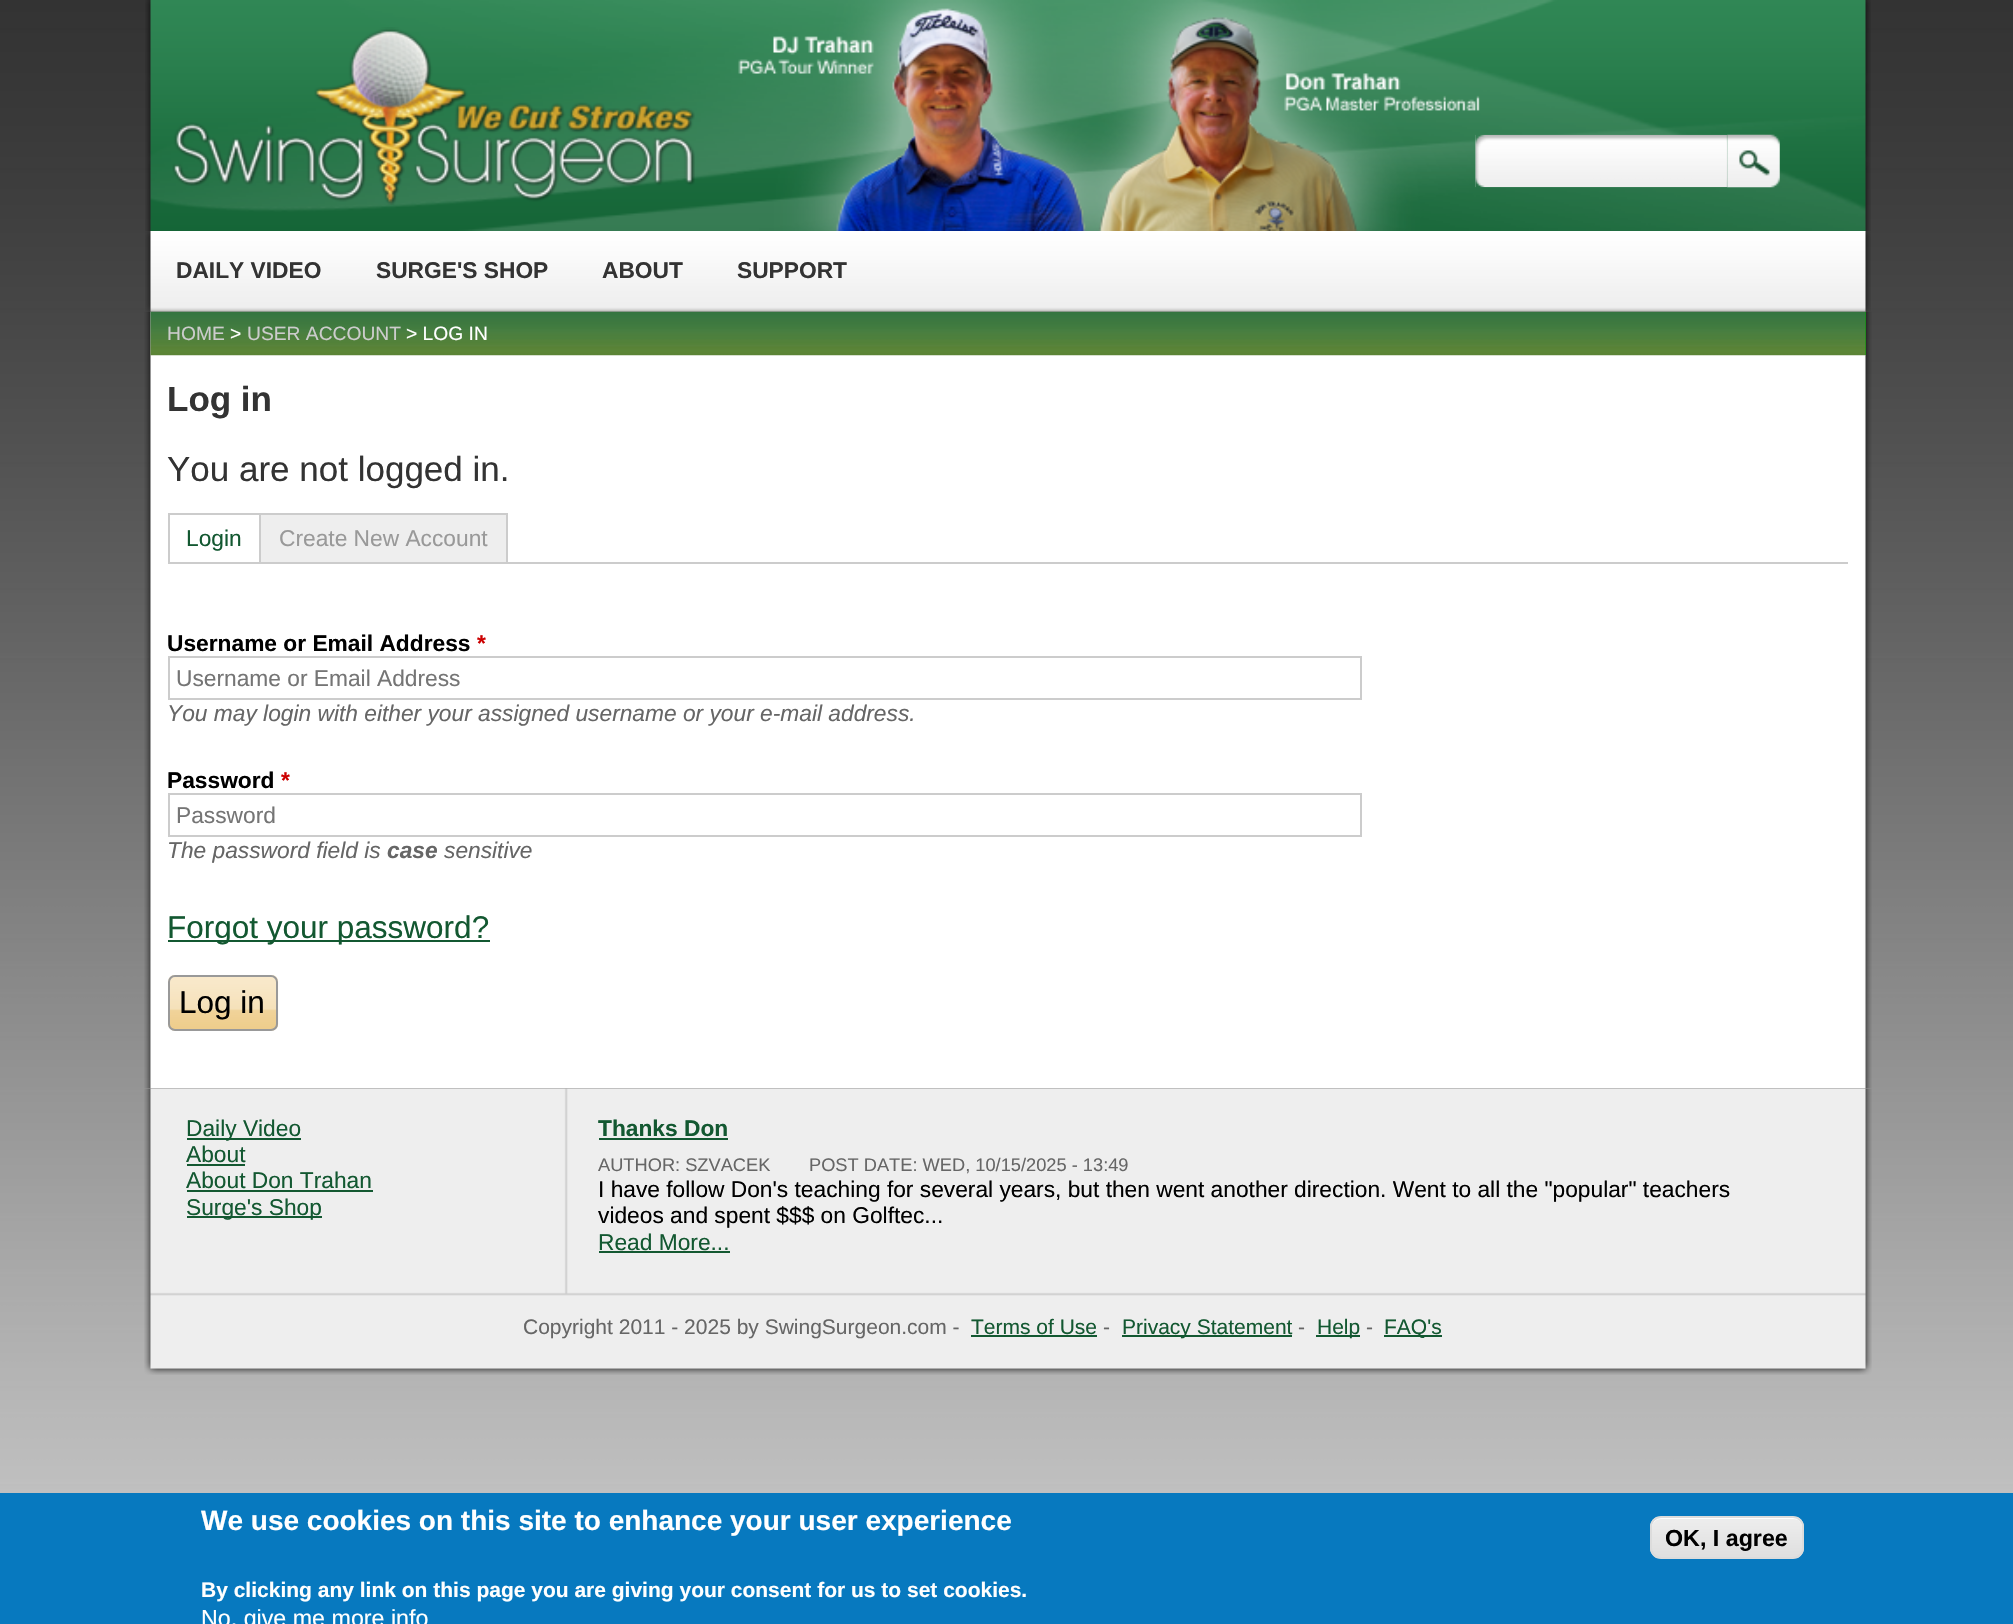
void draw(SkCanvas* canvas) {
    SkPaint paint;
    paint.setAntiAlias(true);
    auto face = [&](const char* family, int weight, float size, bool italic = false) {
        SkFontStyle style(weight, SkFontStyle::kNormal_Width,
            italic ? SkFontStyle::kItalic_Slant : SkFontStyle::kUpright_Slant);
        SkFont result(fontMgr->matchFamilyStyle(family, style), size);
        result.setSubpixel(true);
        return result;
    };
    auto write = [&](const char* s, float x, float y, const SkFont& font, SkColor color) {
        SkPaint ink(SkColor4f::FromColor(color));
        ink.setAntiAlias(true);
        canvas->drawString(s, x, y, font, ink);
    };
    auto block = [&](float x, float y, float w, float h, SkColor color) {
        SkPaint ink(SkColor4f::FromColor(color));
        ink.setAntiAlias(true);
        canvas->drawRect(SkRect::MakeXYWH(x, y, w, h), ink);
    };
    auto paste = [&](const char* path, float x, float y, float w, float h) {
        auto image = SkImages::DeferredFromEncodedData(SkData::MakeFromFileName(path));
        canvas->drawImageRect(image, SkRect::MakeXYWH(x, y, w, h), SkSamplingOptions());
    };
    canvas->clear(SK_ColorWHITE);
    paste("pic1.png", 0, 0, 2013, 1493);
    paste("pic2.png", 145, 0, 1726, 231);
    paste("pic3.png", 172, 27, 523, 178);
    paste("pic4.png", 1475, 134, 253, 54);
    paste("pic5.png", 1727, 134, 53, 54);
    paste("pic6.png", 145, 231, 1726, 81);
    auto kFont1 = face("Liberation Sans", 700, 22.75f);
    write("DAILY VIDEO", 176, 278, kFont1, SkColorSetRGB(51, 51, 51));
    write("SURGE'S SHOP", 376, 278, kFont1, SkColorSetRGB(51, 51, 51));
    write("ABOUT", 602, 278, kFont1, SkColorSetRGB(51, 51, 51));
    write("SUPPORT", 737, 278, kFont1, SkColorSetRGB(51, 51, 51));
    paste("pic7.png", 144, 311, 1728, 778);
    block(1865, 312, 1, 43, SkColorSetRGB(0, 153, 0));
    paste("pic8.png", 150, 311, 1716, 45);
    auto kFont2 = face("Liberation Sans", 400, 19.25f);
    write("HOME", 167, 340, kFont2, SkColorSetRGB(204, 204, 204));
    write(">", 230, 340, kFont2, SK_ColorWHITE);
    write("USER ACCOUNT", 247, 340, kFont2, SkColorSetRGB(204, 204, 204));
    write("> LOG IN", 406, 340, kFont2, SK_ColorWHITE);
    auto kFont3 = face("Liberation Sans", 700, 35);
    write("Log in", 167, 411, kFont3, SkColorSetRGB(51, 51, 51));
    auto kFont4 = face("Liberation Sans", 400, 35);
    write("You are not logged in.", 167, 481, kFont4, SkColorSetRGB(51, 51, 51));
    block(168, 562, 1680, 2, SkColorSetRGB(204, 204, 204));
    block(168, 513, 340, 2, SkColorSetRGB(204, 204, 204));
    block(259, 513, 2, 49, SkColorSetRGB(204, 204, 204));
    block(168, 513, 2, 49, SkColorSetRGB(204, 204, 204));
    auto kFont5 = face("Liberation Sans", 400, 22.75f);
    write("Login", 186, 546, kFont5, SkColorSetRGB(19, 88, 49));
    block(261, 515, 245, 47, SkColorSetRGB(238, 238, 238));
    block(506, 513, 2, 49, SkColorSetRGB(204, 204, 204));
    write("Create New Account", 279, 546, kFont5, SkColorSetRGB(153, 153, 153));
    write("Username or Email Address", 167, 651, kFont1, SK_ColorBLACK);
    write("*", 477, 651, kFont1, SkColorSetRGB(204, 0, 0));
    paint.setStyle(SkPaint::kStroke_Style);
    paint.setStrokeWidth(2);
    paint.setColor(SkColorSetRGB(204, 204, 204));
    canvas->drawRect(SkRect::MakeXYWH(169, 657, 1192, 42), paint);
    write("Username or Email Address", 176, 686, kFont5, SkColorSetRGB(117, 117, 117));
    auto kFont6 = face("Liberation Sans", 400, 22.75f, true);
    write("You may login with either your assigned username or your e-mail address.", 167, 721, kFont6, SkColorSetRGB(102, 102, 102));
    write("Password", 167, 788, kFont1, SK_ColorBLACK);
    write("*", 281, 788, kFont1, SkColorSetRGB(204, 0, 0));
    canvas->drawRect(SkRect::MakeXYWH(169, 794, 1192, 42), paint);
    write("Password", 176, 823, kFont5, SkColorSetRGB(117, 117, 117));
    write("The password field is", 167, 858, kFont6, SkColorSetRGB(102, 102, 102));
    auto kFont7 = face("Liberation Sans", 700, 22.75f, true);
    write("case", 387, 858, kFont7, SkColorSetRGB(102, 102, 102));
    write("sensitive", 444, 858, kFont6, SkColorSetRGB(102, 102, 102));
    block(168, 940, 322, 2, SkColorSetRGB(19, 88, 49));
    auto kFont8 = face("Liberation Sans", 400, 31.5f);
    write("Forgot your password?", 167, 938, kFont8, SkColorSetRGB(19, 88, 49));
    paste("pic9.png", 168, 975, 111, 56);
    paint.setColor(SkColorSetRGB(153, 153, 153));
    canvas->drawRoundRect(SkRect::MakeXYWH(169, 976, 108, 54), 6, 6, paint);
    write("Log in", 179, 1013, kFont8, SK_ColorBLACK);
    paste("pic10.png", 144, 1088, 1728, 287);
    block(187, 1138, 114, 2, SkColorSetRGB(19, 88, 49));
    write("Daily Video", 186, 1136, kFont5, SkColorSetRGB(19, 88, 49));
    write("About", 186, 1162, kFont5, SkColorSetRGB(19, 88, 49));
    block(187, 1164, 58, 2, SkColorSetRGB(19, 88, 49));
    write("About Don Trahan", 186, 1188, kFont5, SkColorSetRGB(19, 88, 49));
    block(187, 1190, 186, 2, SkColorSetRGB(19, 88, 49));
    block(187, 1216, 135, 2, SkColorSetRGB(19, 88, 49));
    write("Surge's Shop", 186, 1215, kFont5, SkColorSetRGB(19, 88, 49));
    write("Thanks Don", 598, 1136, kFont1, SkColorSetRGB(19, 88, 49));
    block(599, 1138, 129, 2, SkColorSetRGB(19, 88, 49));
    auto kFont9 = face("Liberation Sans", 400, 18.25f);
    write("AUTHOR: SZVACEK", 598, 1171, kFont9, SkColorSetRGB(102, 102, 102));
    write("POST DATE: WED, 10/15/2025 - 13:49", 809, 1171, kFont9, SkColorSetRGB(102, 102, 102));
    write("I have follow Don's teaching for several years, but then went another direction. Went to all the \"popular\" teachers", 598, 1197, kFont5, SK_ColorBLACK);
    write("videos and spent $$$ on Golftec...", 598, 1223, kFont5, SK_ColorBLACK);
    write("Read More...", 598, 1250, kFont5, SkColorSetRGB(19, 88, 49));
    block(599, 1251, 131, 2, SkColorSetRGB(19, 88, 49));
    auto kFont10 = face("Liberation Sans", 400, 21);
    write("Copyright 2011 - 2025 by SwingSurgeon.com -", 523, 1334, kFont10, SkColorSetRGB(102, 102, 102));
    write("Terms of Use", 971, 1334, kFont10, SkColorSetRGB(19, 88, 49));
    block(971, 1335, 126, 2, SkColorSetRGB(19, 88, 49));
    write("-", 1103, 1334, kFont10, SkColorSetRGB(102, 102, 102));
    block(1122, 1335, 170, 2, SkColorSetRGB(19, 88, 49));
    write("Privacy Statement", 1122, 1334, kFont10, SkColorSetRGB(19, 88, 49));
    write("-", 1298, 1334, kFont10, SkColorSetRGB(102, 102, 102));
    block(1316, 1335, 44, 2, SkColorSetRGB(19, 88, 49));
    write("Help", 1317, 1334, kFont10, SkColorSetRGB(19, 88, 49));
    write("-", 1366, 1334, kFont10, SkColorSetRGB(102, 102, 102));
    block(1384, 1335, 58, 2, SkColorSetRGB(19, 88, 49));
    write("FAQ's", 1384, 1334, kFont10, SkColorSetRGB(19, 88, 49));
    block(0, 1493, 2013, 131, SkColorSetRGB(7, 121, 191));
    auto kFont11 = face("Liberation Sans", 700, 28);
    write("We use cookies on this site to enhance your user experience", 201, 1530, kFont11, SK_ColorWHITE);
    auto kFont12 = face("Liberation Sans", 700, 21);
    write("By clicking any link on this page you are giving your consent for us to set cookies.", 201, 1597, kFont12, SK_ColorWHITE);
    auto kFont13 = face("Liberation Sans", 400, 23.25f);
    write("No, give me more info", 201, 1626, kFont13, SK_ColorWHITE);
    canvas->save();
    canvas->clipPath(SkPathBuilder().moveTo(1661, 1516).lineTo(1793, 1516).cubicTo(1799, 1516, 1804, 1521, 1804, 1527).lineTo(1804, 1548).cubicTo(1804, 1554, 1799, 1559, 1793, 1559).lineTo(1661, 1559).cubicTo(1655, 1559, 1650, 1554, 1650, 1548).lineTo(1650, 1527).cubicTo(1650, 1521, 1655, 1516, 1661, 1516).close().detach(), true);
    paint.setStyle(SkPaint::kFill_Style);
    {
        const SkColor colors[] = {SkColorSetRGB(237, 237, 237), SkColorSetRGB(223, 223, 223)};
        const float stops[] = {0.05f, 1};
        const SkPoint ends[] = {{1727, 1517}, {1727, 1558}};
        paint.setShader(SkGradientShader::MakeLinear(ends, colors, stops, 2, SkTileMode::kClamp));
        paint.setAlpha(255);
    }
    canvas->drawRect(SkRect::MakeXYWH(1650, 1517, 154, 41), paint);
    canvas->restore();
    paint.setShader(nullptr);
    paint.setColor(SK_ColorWHITE);
    canvas->drawPath(SkPathBuilder().moveTo(1661, 1519).lineTo(1794, 1519).cubicTo(1799, 1519, 1802, 1523, 1802, 1528).lineTo(1802, 1550).cubicTo(1802, 1552, 1802, 1553, 1801, 1555).cubicTo(1802, 1553, 1803, 1551, 1803, 1549).lineTo(1803, 1526).cubicTo(1803, 1521, 1799, 1517, 1794, 1517).lineTo(1661, 1517).cubicTo(1656, 1517, 1652, 1521, 1652, 1526).lineTo(1652, 1528).cubicTo(1652, 1523, 1656, 1519, 1661, 1519).close().detach(), paint);
    paint.setStyle(SkPaint::kStroke_Style);
    paint.setColor(SkColorSetRGB(220, 220, 220));
    canvas->drawRoundRect(SkRect::MakeXYWH(1651, 1517, 152, 41), 10, 10, paint);
    auto kFont14 = face("Liberation Sans", 700, 23.25f);
    write("OK, I agree", 1665, 1546, kFont14, SK_ColorBLACK);
}
